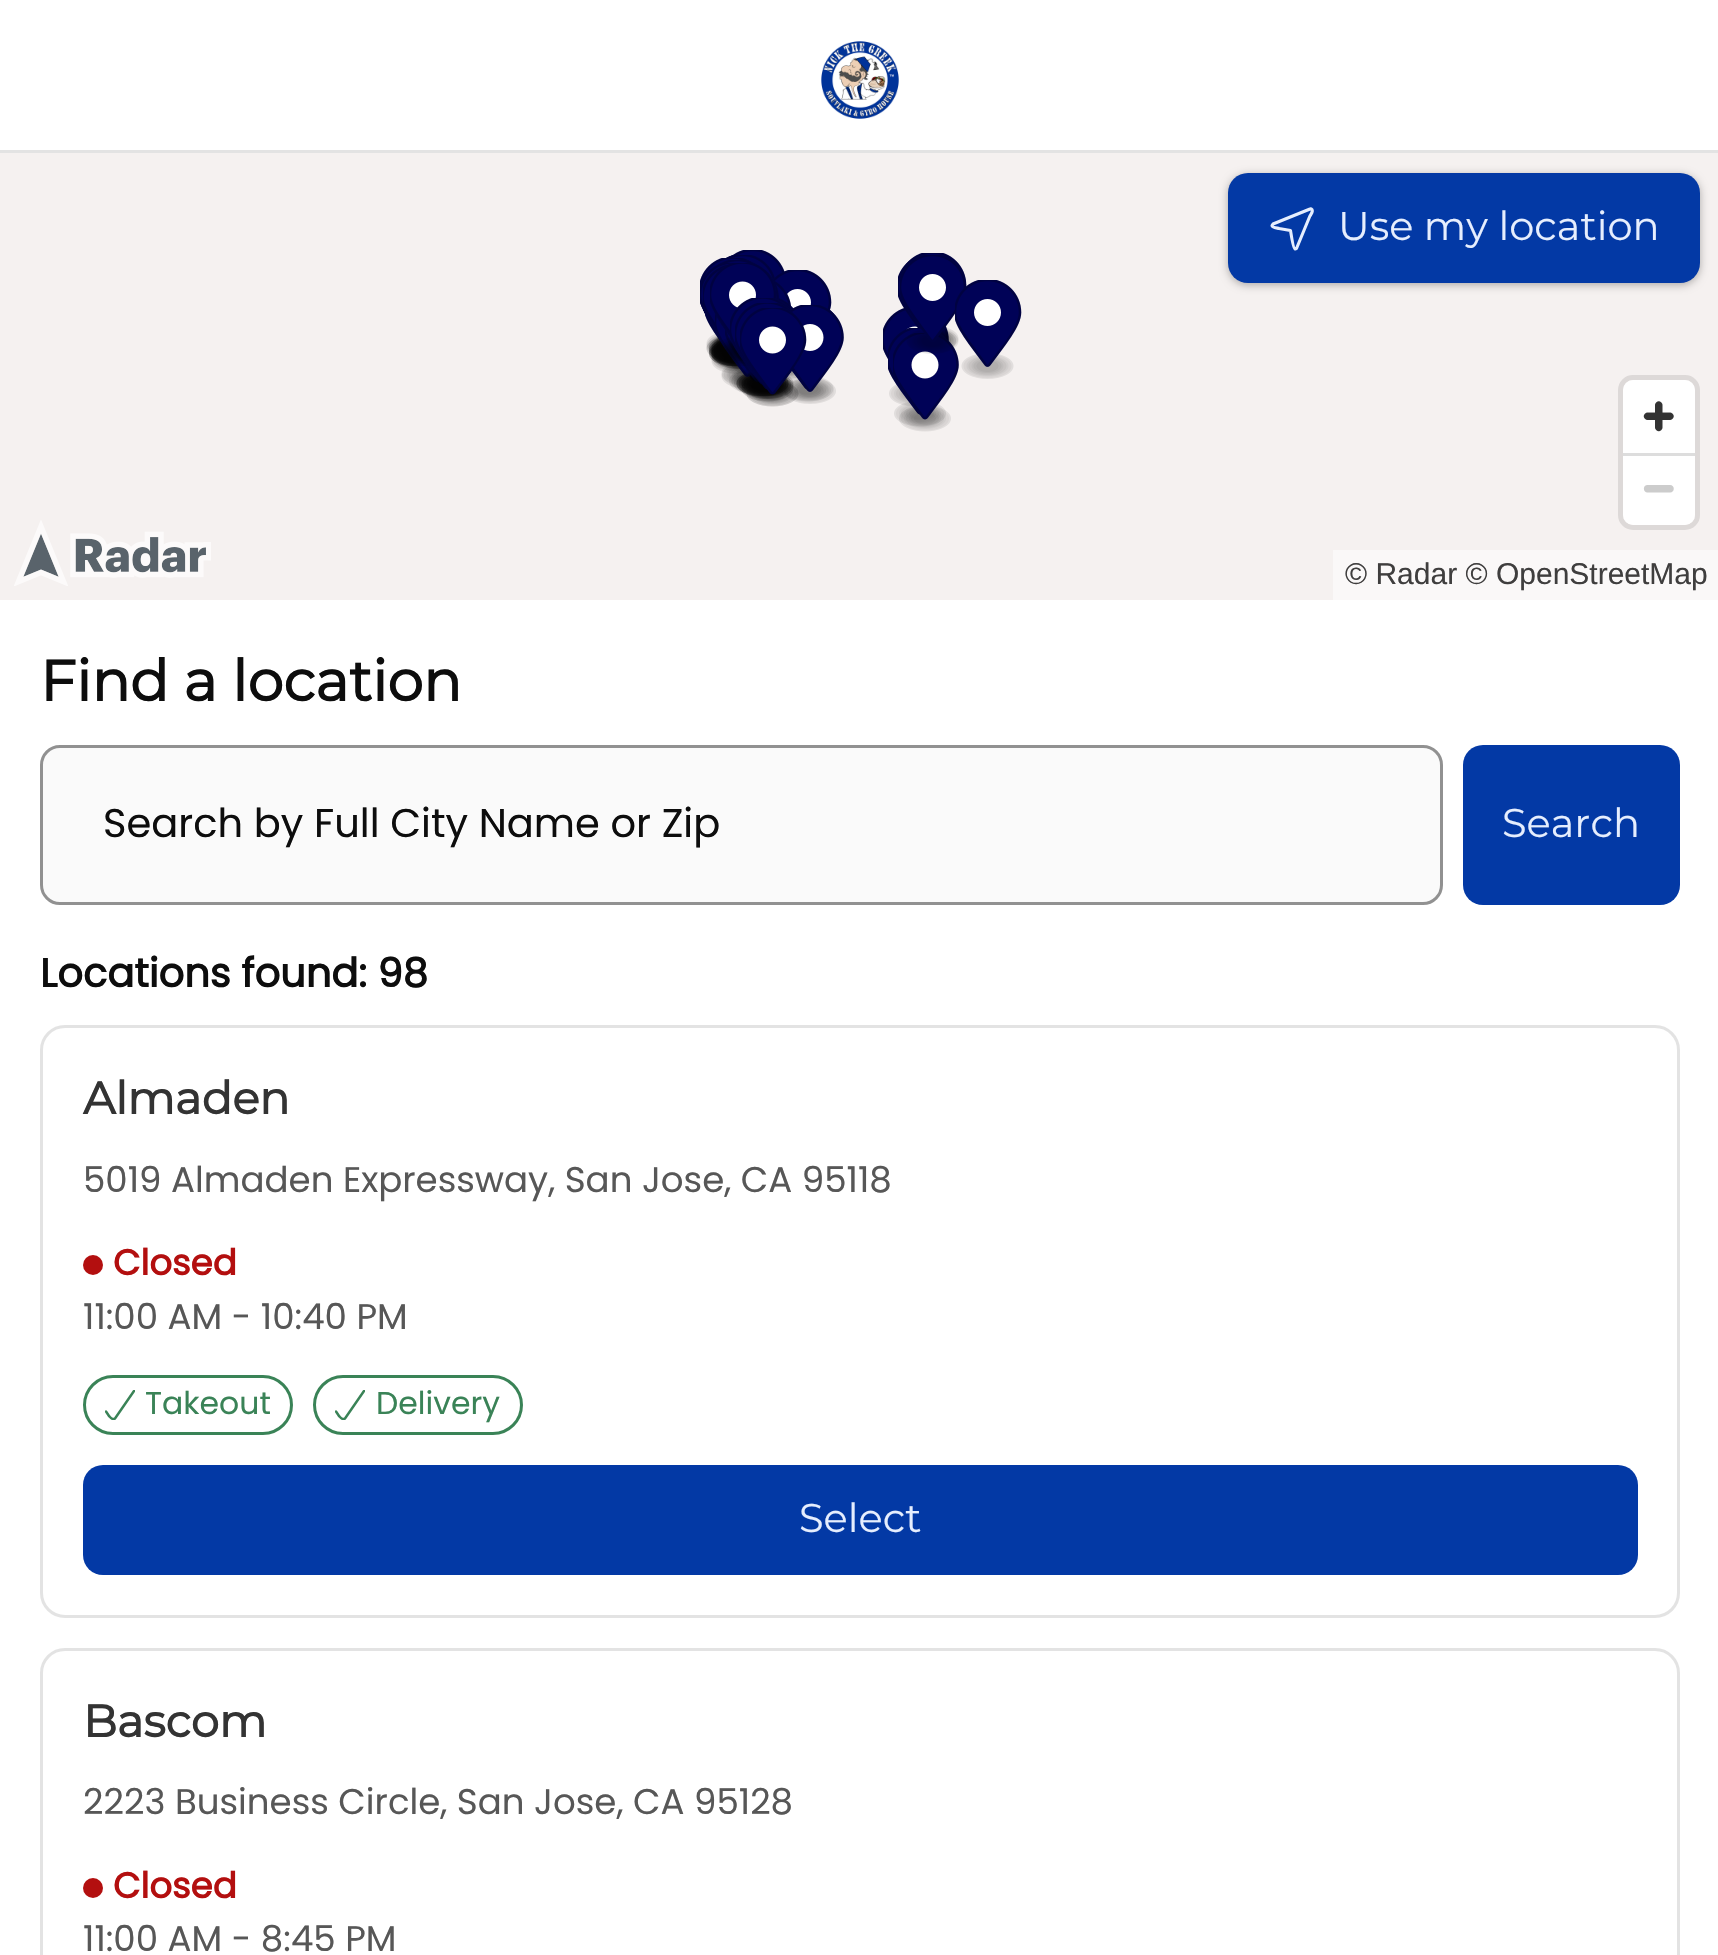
void draw(SkCanvas* canvas) {
    SkPaint paint;
    paint.setAntiAlias(true);
    auto face = [&](const char* family, int weight, float size, bool italic = false) {
        SkFontStyle style(weight, SkFontStyle::kNormal_Width,
            italic ? SkFontStyle::kItalic_Slant : SkFontStyle::kUpright_Slant);
        SkFont result(fontMgr->matchFamilyStyle(family, style), size);
        result.setSubpixel(true);
        return result;
    };
    auto write = [&](const char* s, float x, float y, const SkFont& font, SkColor color) {
        SkPaint ink(SkColor4f::FromColor(color));
        ink.setAntiAlias(true);
        canvas->drawString(s, x, y, font, ink);
    };
    auto block = [&](float x, float y, float w, float h, SkColor color) {
        SkPaint ink(SkColor4f::FromColor(color));
        ink.setAntiAlias(true);
        canvas->drawRect(SkRect::MakeXYWH(x, y, w, h), ink);
    };
    auto card = [&](float x, float y, float w, float h, float radius, SkColor color) {
        SkPaint ink(SkColor4f::FromColor(color));
        ink.setAntiAlias(true);
        canvas->drawRoundRect(SkRect::MakeXYWH(x, y, w, h), radius, radius, ink);
    };
    auto paste = [&](const char* path, float x, float y, float w, float h) {
        auto image = SkImages::DeferredFromEncodedData(SkData::MakeFromFileName(path));
        canvas->drawImageRect(image, SkRect::MakeXYWH(x, y, w, h), SkSamplingOptions());
    };
    canvas->clear(SK_ColorWHITE);
    block(0, 150, 1718, 3, SkColorSetRGB(227, 227, 227));
    paste("pic1.png", 821, 41, 78, 78);
    block(0, 153, 1718, 447, SkColorSetRGB(245, 241, 240));
    paint.setColor(SkColorSetARGB(77, 0, 0, 0));
    paint.setMaskFilter(SkMaskFilter::MakeBlur(kNormal_SkBlurStyle, 4));
    canvas->drawRoundRect(SkRect::MakeXYWH(1228, 175, 472, 110), 20, 20, paint);
    paint.setMaskFilter(nullptr);
    card(1228, 173, 472, 110, 20, SkColorSetRGB(3, 57, 165));
    paint.setStyle(SkPaint::kStroke_Style);
    paint.setStrokeWidth(3.1f);
    paint.setStrokeCap(SkPaint::kRound_Cap);
    paint.setStrokeJoin(SkPaint::kRound_Join);
    paint.setColor(SkColorSetRGB(230, 238, 254));
    canvas->drawPath(SkPathBuilder().moveTo(1310, 209).cubicTo(1311, 208.5f, 1311.5f, 209, 1312, 209.5f).cubicTo(1313.5f, 212, 1310.5f, 214.5f, 1309.5f, 217).lineTo(1296.5f, 248.5f).lineTo(1295, 249).cubicTo(1293, 248.5f, 1291, 233, 1290.5f, 230.5f).lineTo(1279, 228.5f).cubicTo(1278, 228, 1272, 228, 1272, 225.5f).lineTo(1273, 224).close().detach(), paint);
    auto kFont1 = face("Montserrat", 100, 40);
    write("Use my location", 1338, 240, kFont1, SkColorSetRGB(230, 238, 254));
    paste("pic72.png", 711, 345, 29, 24);
    paste("pic64.png", 711, 343, 28, 24);
    paste("pic45.png", 709, 338, 26, 24);
    paste("pic73.png", 714, 346, 26, 23);
    paste("pic55.png", 714, 340, 20, 21);
    paste("pic27.png", 703, 309, 36, 58);
    paste("pic57.png", 711, 341, 26, 23);
    paste("pic48.png", 711, 339, 23, 22);
    paste("pic49.png", 711, 339, 23, 22);
    paste("pic51.png", 709, 340, 28, 24);
    paste("pic58.png", 711, 341, 26, 23);
    paste("pic44.png", 714, 337, 14, 15);
    paste("pic65.png", 711, 343, 28, 24);
    paste("pic59.png", 711, 341, 26, 23);
    paste("pic66.png", 711, 343, 28, 24);
    paste("pic56.png", 716, 340, 15, 16);
    paste("pic47.png", 716, 338, 13, 16);
    paste("pic2.png", 716, 255, 17, 97);
    paste("pic3.png", 730, 250, 55, 29);
    paste("pic29.png", 883, 308, 66, 99);
    paste("pic8.png", 898, 256, 58, 91);
    paste("pic4.png", 900, 253, 67, 94);
    paste("pic67.png", 711, 343, 28, 24);
    paste("pic75.png", 726, 353, 15, 17);
    paste("pic52.png", 709, 340, 27, 23);
    paste("pic60.png", 711, 341, 24, 21);
    paste("pic63.png", 714, 342, 22, 21);
    paste("pic35.png", 705, 313, 39, 61);
    paste("pic74.png", 714, 346, 26, 23);
    paste("pic68.png", 711, 343, 27, 23);
    paste("pic43.png", 709, 336, 23, 22);
    paste("pic22.png", 700, 302, 34, 58);
    paste("pic53.png", 709, 340, 26, 22);
    paste("pic30.png", 703, 309, 35, 57);
    paste("pic14.png", 700, 280, 31, 76);
    paste("pic46.png", 709, 338, 24, 21);
    paste("pic31.png", 703, 309, 35, 57);
    paste("pic71.png", 719, 344, 17, 19);
    paste("pic5.png", 716, 255, 59, 97);
    paste("pic40.png", 888, 328, 61, 99);
    paste("pic42.png", 893, 333, 66, 99);
    paste("pic6.png", 900, 255, 67, 99);
    paste("pic54.png", 709, 340, 25, 21);
    paste("pic78.png", 785, 370, 13, 9);
    paste("pic88.png", 741, 376, 53, 23);
    paste("pic80.png", 785, 370, 13, 9);
    paste("pic86.png", 739, 375, 52, 22);
    paste("pic87.png", 739, 376, 52, 23);
    paste("pic81.png", 736, 374, 53, 23);
    paste("pic89.png", 741, 376, 53, 23);
    paste("pic41.png", 716, 332, 46, 54);
    paste("pic32.png", 703, 309, 35, 57);
    paste("pic61.png", 711, 341, 26, 23);
    paste("pic33.png", 703, 309, 35, 57);
    paste("pic34.png", 781, 309, 58, 93);
    paste("pic77.png", 746, 370, 53, 37);
    paste("pic90.png", 741, 376, 53, 20);
    paste("pic76.png", 729, 370, 40, 24);
    paste("pic36.png", 705, 313, 37, 59);
    paste("pic7.png", 700, 258, 53, 98);
    paste("pic69.png", 711, 343, 27, 23);
    paste("pic62.png", 711, 341, 25, 22);
    paste("pic9.png", 711, 260, 49, 98);
    paste("pic11.png", 709, 263, 25, 97);
    paste("pic16.png", 773, 270, 59, 41);
    paste("pic70.png", 711, 343, 27, 23);
    paste("pic82.png", 736, 374, 53, 23);
    paste("pic17.png", 731, 280, 61, 96);
    paste("pic50.png", 711, 339, 22, 20);
    paste("pic38.png", 707, 316, 33, 53);
    paste("pic10.png", 700, 263, 34, 97);
    paste("pic13.png", 703, 265, 33, 98);
    paste("pic83.png", 736, 374, 53, 23);
    paste("pic79.png", 734, 373, 52, 24);
    paste("pic84.png", 736, 374, 53, 22);
    paste("pic85.png", 736, 374, 53, 22);
    paste("pic37.png", 715, 313, 49, 75);
    paste("pic39.png", 725, 329, 59, 64);
    paste("pic21.png", 741, 298, 53, 98);
    paste("pic19.png", 713, 284, 66, 82);
    paste("pic15.png", 717, 266, 62, 98);
    paste("pic23.png", 741, 300, 53, 99);
    paste("pic26.png", 741, 306, 53, 96);
    paste("pic12.png", 710, 263, 66, 98);
    paste("pic18.png", 955, 280, 67, 99);
    paste("pic25.png", 784, 305, 60, 99);
    paste("pic20.png", 730, 298, 61, 98);
    paste("pic24.png", 735, 303, 61, 99);
    paste("pic28.png", 740, 308, 67, 99);
    paste("pic91.png", 14, 520, 197, 66);
    paint.setStrokeWidth(5);
    paint.setStrokeCap(SkPaint::kButt_Cap);
    paint.setStrokeJoin(SkPaint::kMiter_Join);
    paint.setColor(SkColorSetRGB(221, 217, 216));
    canvas->drawRoundRect(SkRect::MakeXYWH(1620.5f, 377.5f, 77, 150), 12.5f, 12.5f, paint);
    card(1623, 380, 72, 145, 10, SK_ColorWHITE);
    paste("pic92.png", 1643, 401, 31, 31);
    block(1623, 453, 72, 3, SkColorSetRGB(221, 221, 221));
    paint.setStyle(SkPaint::kFill_Style);
    paint.setColor(SkColorSetRGB(204, 204, 204));
    canvas->drawPath(SkPathBuilder().moveTo(1647.5f, 485).cubicTo(1643, 485, 1642.5f, 491.5f, 1647, 492.5f).lineTo(1670, 492.5f).cubicTo(1675, 492.5f, 1675, 485, 1670, 485).close().detach(), paint);
    block(1333, 550, 385, 50, SkColorSetRGB(250, 248, 248));
    auto kFont2 = face("Liberation Sans", 400, 30);
    write("© Radar © OpenStreetMap", 1345, 584, kFont2, SkColorSetRGB(63, 62, 62));
    auto kFont3 = face("Montserrat", 700, 57);
    write("Find a location", 40, 701, kFont3, SkColorSetRGB(13, 13, 13));
    paint.setColor(SkColorSetRGB(250, 250, 250));
    canvas->drawRoundRect(SkRect::MakeXYWH(41.5f, 746.5f, 1400, 157), 18.5f, 18.5f, paint);
    paint.setStyle(SkPaint::kStroke_Style);
    paint.setStrokeWidth(3);
    paint.setColor(SkColorSetRGB(145, 145, 145));
    canvas->drawRoundRect(SkRect::MakeXYWH(41.5f, 746.5f, 1400, 157), 18.5f, 18.5f, paint);
    auto kFont4 = face("Poppins", 400, 40);
    write("Search by Full City Name or Zip", 103, 837, kFont4, SkColorSetRGB(13, 13, 13));
    card(1463, 745, 217, 160, 20, SkColorSetRGB(3, 57, 165));
    write("Search", 1502, 837, kFont1, SkColorSetRGB(230, 238, 254));
    auto kFont5 = face("Poppins", 700, 40);
    write("Locations found: 98", 40, 987, kFont5, SkColorSetRGB(13, 13, 13));
    paint.setColor(SkColorSetRGB(227, 227, 227));
    canvas->drawRoundRect(SkRect::MakeXYWH(41.5f, 1026.5f, 1637, 590), 23.5f, 23.5f, paint);
    auto kFont6 = face("Montserrat", 700, 45);
    write("Almaden", 83, 1114, kFont6, SkColorSetRGB(51, 51, 51));
    auto kFont7 = face("Poppins", 400, 35.6f);
    write("5019 Almaden Expressway, San Jose, CA 95118", 83, 1192, kFont7, SkColorSetRGB(87, 87, 87));
    paint.setStyle(SkPaint::kFill_Style);
    paint.setColor(SkColorSetRGB(179, 15, 15));
    canvas->drawCircle(93, 1265, 10, paint);
    auto kFont8 = face("Poppins", 700, 35.6f);
    write("Closed", 113, 1275, kFont8, SkColorSetRGB(179, 15, 15));
    write("11:00 AM - 10:40 PM", 83, 1329, kFont7, SkColorSetRGB(87, 87, 87));
    paint.setStyle(SkPaint::kStroke_Style);
    paint.setColor(SkColorSetRGB(58, 131, 87));
    canvas->drawRoundRect(SkRect::MakeXYWH(84.5f, 1376.5f, 207, 57), 28.5f, 28.5f, paint);
    canvas->save();
    canvas->clipRect(SkRect::MakeXYWH(105, 1390, 30, 30));
    paint.setStrokeWidth(2.5f);
    paint.setStrokeCap(SkPaint::kRound_Cap);
    paint.setStrokeJoin(SkPaint::kRound_Join);
    canvas->drawPath(SkPathBuilder().moveTo(134, 1391).lineTo(115, 1418.5f).cubicTo(112.5f, 1420.5f, 110.5f, 1417.5f, 109, 1416).lineTo(106, 1411.5f).detach(), paint);
    canvas->restore();
    auto kFont9 = face("Poppins", 400, 31.5f);
    write("Takeout", 145, 1414, kFont9, SkColorSetRGB(58, 131, 87));
    paint.setStrokeWidth(3);
    paint.setStrokeCap(SkPaint::kButt_Cap);
    paint.setStrokeJoin(SkPaint::kMiter_Join);
    canvas->drawRoundRect(SkRect::MakeXYWH(314.5f, 1376.5f, 207, 57), 28.5f, 28.5f, paint);
    canvas->save();
    canvas->clipRect(SkRect::MakeXYWH(335, 1390, 30, 30));
    paint.setStrokeWidth(2.5f);
    paint.setStrokeCap(SkPaint::kRound_Cap);
    paint.setStrokeJoin(SkPaint::kRound_Join);
    canvas->drawPath(SkPathBuilder().moveTo(364, 1391).lineTo(345, 1418.5f).cubicTo(342.5f, 1420.5f, 340.5f, 1417.5f, 339, 1416).lineTo(336, 1411.5f).detach(), paint);
    canvas->restore();
    write("Delivery", 376, 1414, kFont9, SkColorSetRGB(58, 131, 87));
    card(83, 1465, 1555, 110, 20, SkColorSetRGB(3, 57, 165));
    write("Select", 799, 1532, kFont1, SkColorSetRGB(230, 238, 254));
    paint.setStrokeWidth(3);
    paint.setStrokeCap(SkPaint::kButt_Cap);
    paint.setStrokeJoin(SkPaint::kMiter_Join);
    paint.setColor(SkColorSetRGB(227, 227, 227));
    canvas->drawRoundRect(SkRect::MakeXYWH(41.5f, 1649.5f, 1637, 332), 23.5f, 23.5f, paint);
    write("Bascom", 83, 1737, kFont6, SkColorSetRGB(51, 51, 51));
    write("2223 Business Circle, San Jose, CA 95128", 83, 1814, kFont7, SkColorSetRGB(87, 87, 87));
    paint.setStyle(SkPaint::kFill_Style);
    paint.setColor(SkColorSetRGB(179, 15, 15));
    canvas->drawCircle(93, 1888, 10, paint);
    write("Closed", 113, 1898, kFont8, SkColorSetRGB(179, 15, 15));
    write("11:00 AM - 8:45 PM", 83, 1951, kFont7, SkColorSetRGB(87, 87, 87));
}
